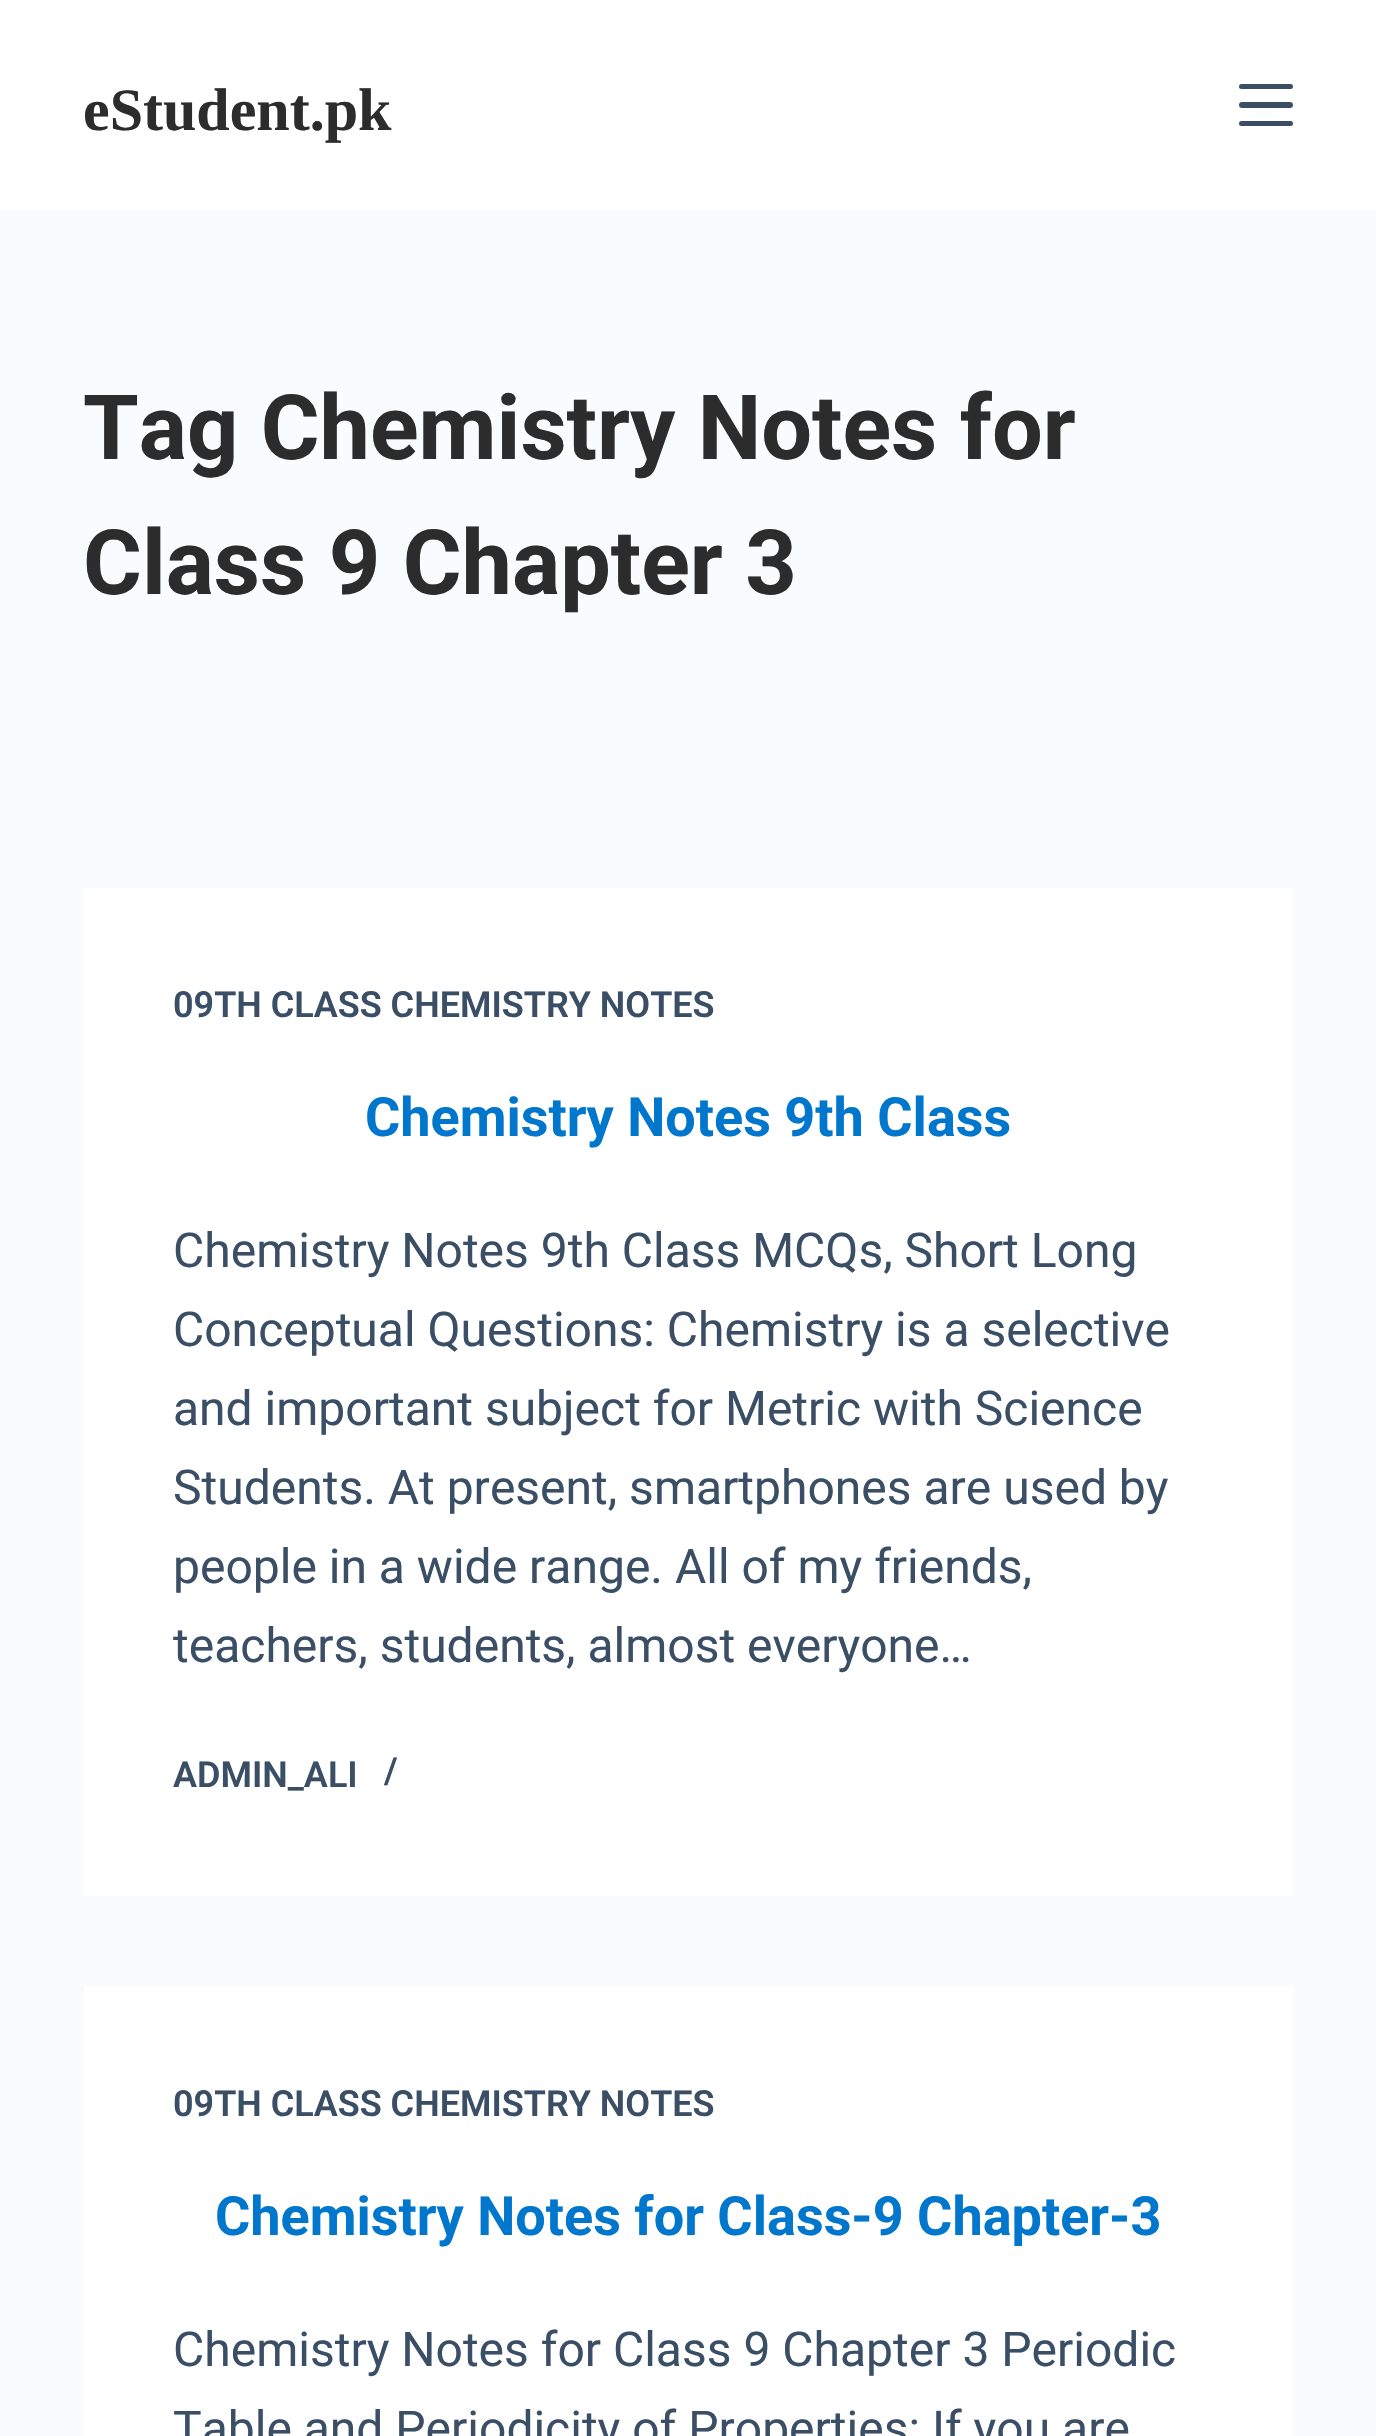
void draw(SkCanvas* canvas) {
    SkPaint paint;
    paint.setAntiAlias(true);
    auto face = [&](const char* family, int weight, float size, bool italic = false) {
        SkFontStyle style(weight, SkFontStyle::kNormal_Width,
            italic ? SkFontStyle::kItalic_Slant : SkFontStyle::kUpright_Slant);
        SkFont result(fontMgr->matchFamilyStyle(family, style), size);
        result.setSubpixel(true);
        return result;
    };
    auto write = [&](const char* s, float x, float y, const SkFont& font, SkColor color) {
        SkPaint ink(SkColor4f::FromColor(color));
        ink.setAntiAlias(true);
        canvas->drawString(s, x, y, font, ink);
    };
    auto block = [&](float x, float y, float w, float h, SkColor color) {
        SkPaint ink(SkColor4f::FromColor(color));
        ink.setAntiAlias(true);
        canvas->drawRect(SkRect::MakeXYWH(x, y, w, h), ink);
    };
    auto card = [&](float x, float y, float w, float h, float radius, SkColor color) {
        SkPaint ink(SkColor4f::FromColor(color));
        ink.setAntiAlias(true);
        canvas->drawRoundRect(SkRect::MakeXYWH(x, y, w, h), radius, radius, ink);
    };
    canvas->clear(SkColorSetRGB(250, 251, 252));
    block(0, 0, 1376, 210, SK_ColorWHITE);
    auto kFont1 = face("Liberation Serif", 700, 60);
    write("eStudent.pk", 83, 130, kFont1, SkColorSetRGB(44, 44, 44));
    card(1239, 84, 54, 5, 2.5f, SkColorSetRGB(58, 79, 102));
    card(1239, 102, 54, 6, 3, SkColorSetRGB(58, 79, 102));
    card(1239, 121, 54, 5, 2.5f, SkColorSetRGB(58, 79, 102));
    auto kFont2 = face("Roboto", 700, 90);
    write("Tag Chemistry Notes for", 83, 459, kFont2, SkColorSetRGB(44, 44, 44));
    write("Class 9 Chapter 3", 83, 594, kFont2, SkColorSetRGB(44, 44, 44));
    block(84, 888, 1209, 1008, SK_ColorWHITE);
    auto kFont3 = face("Roboto", 600, 36);
    write("09TH CLASS CHEMISTRY NOTES", 173, 1017, kFont3, SkColorSetRGB(58, 79, 102));
    auto kFont4 = face("Roboto", 700, 54);
    write("Chemistry Notes 9th Class", 365, 1136, kFont4, SkColorSetRGB(0, 119, 204));
    auto kFont5 = face("Roboto", 400, 48);
    write("Chemistry Notes 9th Class MCQs, Short Long", 173, 1267, kFont5, SkColorSetRGB(58, 79, 102));
    write("Conceptual Questions: Chemistry is a selective", 173, 1346, kFont5, SkColorSetRGB(58, 79, 102));
    write("and important subject for Metric with Science", 173, 1425, kFont5, SkColorSetRGB(58, 79, 102));
    write("Students. At present, smartphones are used by", 173, 1504, kFont5, SkColorSetRGB(58, 79, 102));
    write("people in a wide range. All of my friends,", 173, 1583, kFont5, SkColorSetRGB(58, 79, 102));
    write("teachers, students, almost everyone…", 173, 1662, kFont5, SkColorSetRGB(58, 79, 102));
    write("ADMIN_ALI", 173, 1787, kFont3, SkColorSetRGB(58, 79, 102));
    write("/", 384, 1783, kFont3, SkColorSetRGB(58, 79, 102));
    block(84, 1986, 1209, 450, SK_ColorWHITE);
    write("09TH CLASS CHEMISTRY NOTES", 173, 2116, kFont3, SkColorSetRGB(58, 79, 102));
    write("Chemistry Notes for Class-9 Chapter-3", 215, 2235, kFont4, SkColorSetRGB(0, 119, 204));
    write("Chemistry Notes for Class 9 Chapter 3 Periodic", 173, 2366, kFont5, SkColorSetRGB(58, 79, 102));
    write("Table and Periodicity of Properties: If you are", 173, 2445, kFont5, SkColorSetRGB(58, 79, 102));
}
